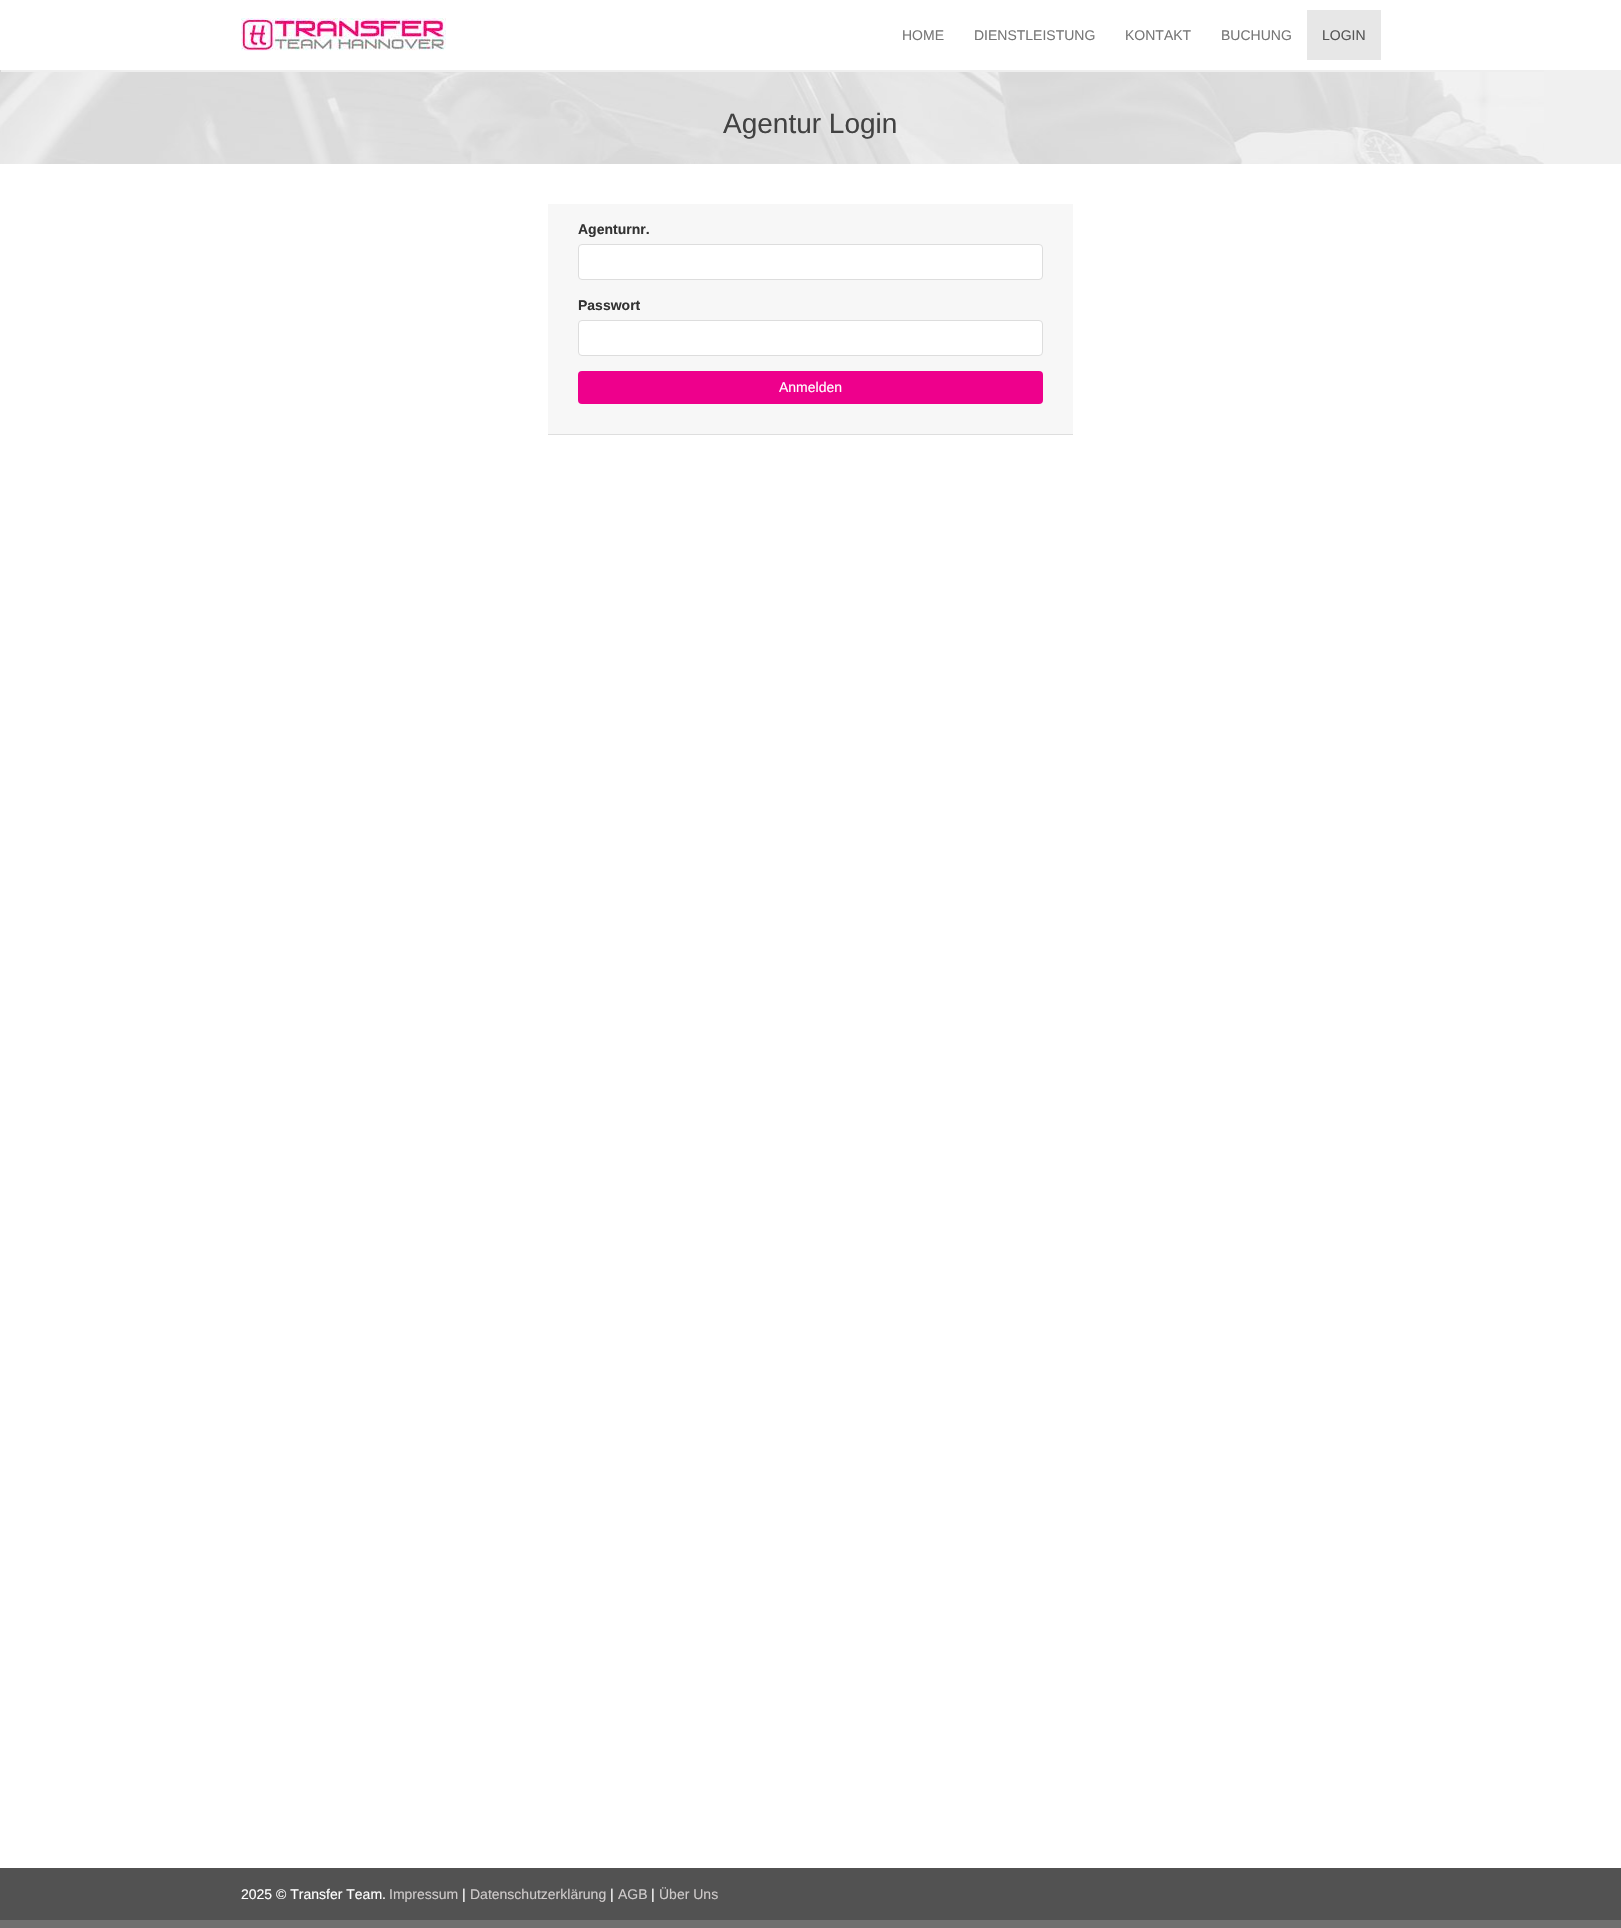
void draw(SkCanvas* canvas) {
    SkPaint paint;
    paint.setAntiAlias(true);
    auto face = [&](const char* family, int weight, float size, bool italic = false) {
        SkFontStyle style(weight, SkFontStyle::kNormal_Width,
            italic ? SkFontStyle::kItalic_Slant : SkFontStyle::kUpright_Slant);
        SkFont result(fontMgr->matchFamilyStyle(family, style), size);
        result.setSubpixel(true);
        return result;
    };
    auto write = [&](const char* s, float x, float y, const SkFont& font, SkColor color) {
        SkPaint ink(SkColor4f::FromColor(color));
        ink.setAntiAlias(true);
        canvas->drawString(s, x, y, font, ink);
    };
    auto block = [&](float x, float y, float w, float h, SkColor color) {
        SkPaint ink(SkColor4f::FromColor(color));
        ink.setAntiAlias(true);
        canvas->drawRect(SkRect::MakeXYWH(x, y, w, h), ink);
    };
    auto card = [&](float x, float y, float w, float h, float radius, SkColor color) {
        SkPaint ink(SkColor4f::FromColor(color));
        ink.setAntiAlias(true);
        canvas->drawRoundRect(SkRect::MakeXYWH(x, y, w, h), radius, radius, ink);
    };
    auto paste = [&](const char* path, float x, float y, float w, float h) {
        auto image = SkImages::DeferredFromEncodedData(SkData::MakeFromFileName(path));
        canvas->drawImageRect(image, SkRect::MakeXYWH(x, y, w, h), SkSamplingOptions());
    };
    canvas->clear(SK_ColorWHITE);
    paste("pic2.png", 0, 70, 1544, 94);
    block(1, 70, 1543, 2, SkColorSetRGB(238, 238, 238));
    paste("pic1.png", 241, 18, 205, 33);
    auto kFont1 = face("Liberation Sans", 400, 14);
    write("HOME", 902, 40, kFont1, SkColorSetRGB(119, 119, 119));
    write("DIENSTLEISTUNG", 974, 40, kFont1, SkColorSetRGB(119, 119, 119));
    write("KONTAKT", 1125, 40, kFont1, SkColorSetRGB(119, 119, 119));
    write("BUCHUNG", 1221, 40, kFont1, SkColorSetRGB(119, 119, 119));
    block(1307, 10, 74, 50, SkColorSetRGB(231, 231, 231));
    write("LOGIN", 1322, 40, kFont1, SkColorSetRGB(85, 85, 85));
    block(1544, 70, 77, 94, SkColorSetRGB(240, 240, 240));
    auto kFont2 = face("Liberation Sans", 400, 28);
    write("Agentur Login", 723, 133, kFont2, SkColorSetRGB(66, 66, 66));
    block(548, 204, 525, 230, SkColorSetRGB(247, 247, 247));
    block(548, 434, 525, 1, SkColorSetRGB(222, 222, 222));
    auto kFont3 = face("Liberation Sans", 700, 14);
    write("Agenturnr.", 578, 234, kFont3, SkColorSetRGB(51, 51, 51));
    paint.setColor(SK_ColorWHITE);
    canvas->drawRoundRect(SkRect::MakeXYWH(578.5f, 244.5f, 464, 35), 3.5f, 3.5f, paint);
    paint.setStyle(SkPaint::kStroke_Style);
    paint.setStrokeWidth(1);
    paint.setColor(SkColorSetRGB(221, 221, 221));
    canvas->drawRoundRect(SkRect::MakeXYWH(578.5f, 244.5f, 464, 35), 3.5f, 3.5f, paint);
    write("Passwort", 578, 310, kFont3, SkColorSetRGB(51, 51, 51));
    paint.setStyle(SkPaint::kFill_Style);
    paint.setColor(SK_ColorWHITE);
    canvas->drawRoundRect(SkRect::MakeXYWH(578.5f, 320.5f, 464, 35), 3.5f, 3.5f, paint);
    paint.setStyle(SkPaint::kStroke_Style);
    paint.setColor(SkColorSetRGB(221, 221, 221));
    canvas->drawRoundRect(SkRect::MakeXYWH(578.5f, 320.5f, 464, 35), 3.5f, 3.5f, paint);
    card(578, 371, 465, 33, 4, SkColorSetRGB(238, 0, 140));
    write("Anmelden", 779, 392, kFont1, SK_ColorWHITE);
    block(0, 1920, 1621, 8, SkColorSetRGB(111, 111, 111));
    block(0, 1868, 1621, 52, SkColorSetRGB(82, 82, 82));
    write("2025 © Transfer Team.", 241, 1899, kFont1, SK_ColorWHITE);
    write("Impressum", 389, 1899, kFont1, SkColorSetRGB(206, 202, 202));
    write("|", 462, 1899, kFont1, SK_ColorWHITE);
    write("Datenschutzerklärung", 470, 1899, kFont1, SkColorSetRGB(206, 202, 202));
    write("|", 610, 1899, kFont1, SK_ColorWHITE);
    write("AGB", 618, 1899, kFont1, SkColorSetRGB(206, 202, 202));
    write("|", 651, 1899, kFont1, SK_ColorWHITE);
    write("Über Uns", 659, 1899, kFont1, SkColorSetRGB(206, 202, 202));
}
